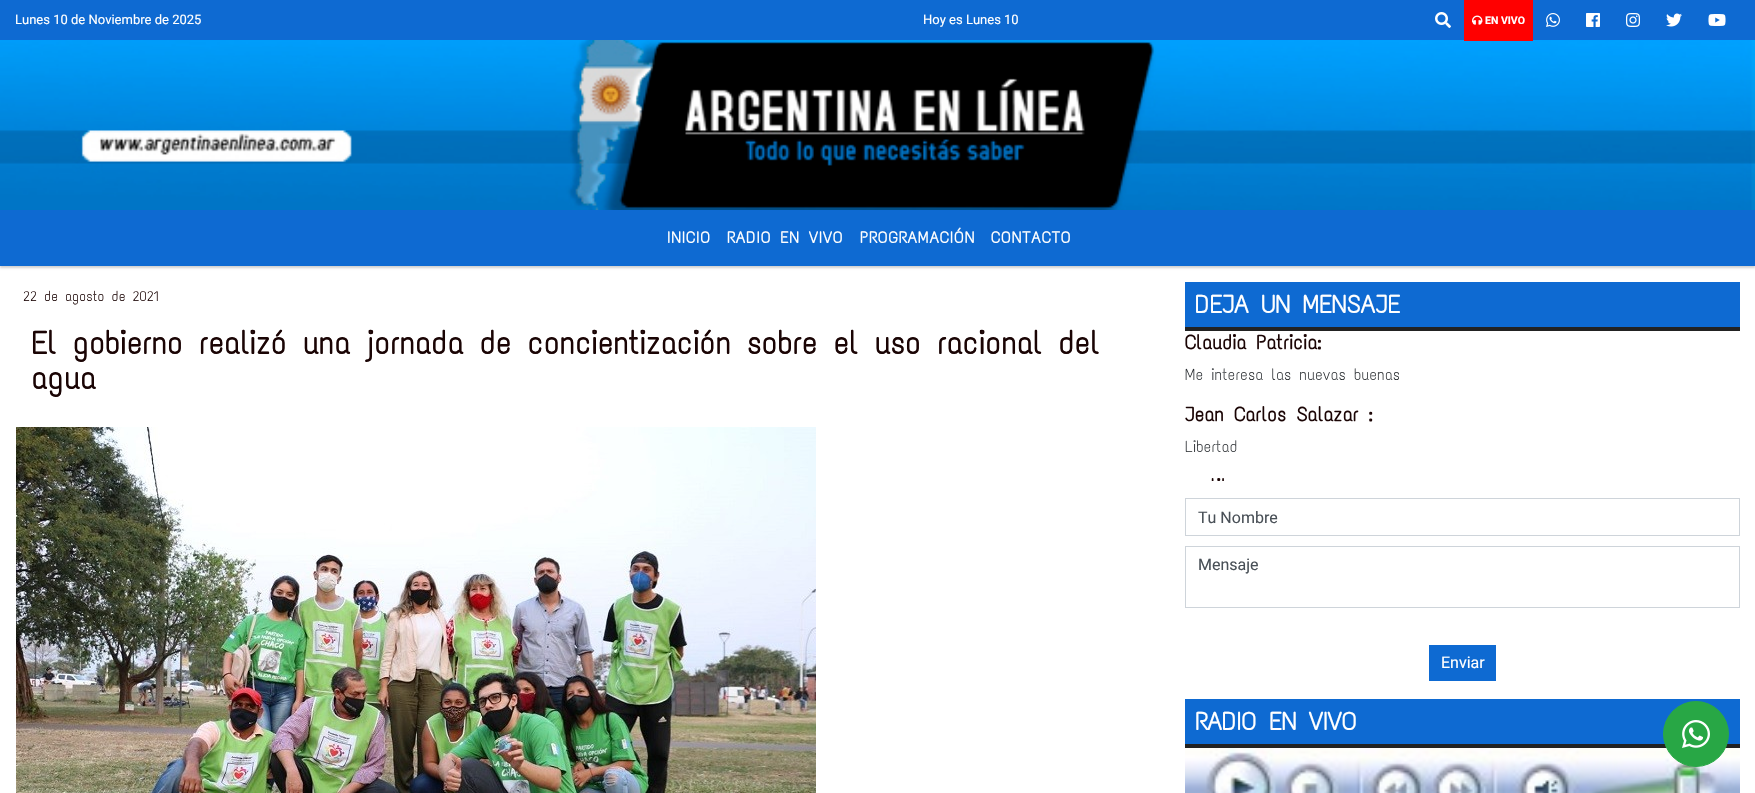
void draw(SkCanvas* canvas) {
    SkPaint paint;
    paint.setAntiAlias(true);
    auto face = [&](const char* family, int weight, float size, bool italic = false) {
        SkFontStyle style(weight, SkFontStyle::kNormal_Width,
            italic ? SkFontStyle::kItalic_Slant : SkFontStyle::kUpright_Slant);
        SkFont result(fontMgr->matchFamilyStyle(family, style), size);
        result.setSubpixel(true);
        return result;
    };
    auto write = [&](const char* s, float x, float y, const SkFont& font, SkColor color) {
        SkPaint ink(SkColor4f::FromColor(color));
        ink.setAntiAlias(true);
        canvas->drawString(s, x, y, font, ink);
    };
    auto writeSpaced = [&](const char* s, float x, float y, const SkFont& font, const SkPaint& ink, float letter, float word) {
        std::vector<SkGlyphID> glyphs(font.countText(s, strlen(s), SkTextEncoding::kUTF8));
        std::vector<float> xs(glyphs.size());
        font.textToGlyphs(s, strlen(s), SkTextEncoding::kUTF8, glyphs);
        font.getXPos(glyphs, xs, x);
        float extra = 0;
        for (size_t i = 0; i < glyphs.size(); i++) {
            xs[i] += extra;
            extra += letter + word * (glyphs[i] == font.unicharToGlyph(' '));
        }
        canvas->drawTextBlob(SkTextBlob::MakeFromPosHGlyphs(glyphs, xs, y, font), 0, 0, ink);
    };
    auto block = [&](float x, float y, float w, float h, SkColor color) {
        SkPaint ink(SkColor4f::FromColor(color));
        ink.setAntiAlias(true);
        canvas->drawRect(SkRect::MakeXYWH(x, y, w, h), ink);
    };
    auto paste = [&](const char* path, float x, float y, float w, float h) {
        auto image = SkImages::DeferredFromEncodedData(SkData::MakeFromFileName(path));
        canvas->drawImageRect(image, SkRect::MakeXYWH(x, y, w, h), SkSamplingOptions());
    };
    canvas->clear(SK_ColorWHITE);
    block(0, 0, 1755, 40, SkColorSetRGB(14, 106, 210));
    auto kFont1 = face("Roboto", 400, 13);
    write("Lunes 10 de Noviembre de 2025", 15, 24, kFont1, SK_ColorWHITE);
    write("Hoy es Lunes 10", 923, 24, kFont1, SK_ColorWHITE);
    paste("pic1.png", 1435, 12, 16, 16);
    paste("pic8.png", 0, 40, 1755, 170);
    block(1464, 0, 69, 41, SkColorSetRGB(255, 0, 0));
    paste("pic2.png", 1472, 15, 11, 10);
    auto kFont2 = face("Roboto", 700, 10.5f);
    write("EN VIVO", 1485, 24, kFont2, SK_ColorWHITE);
    paste("pic3.png", 1546, 13, 14, 14);
    paste("pic4.png", 1586, 13, 14, 14);
    paste("pic5.png", 1626, 13, 14, 14);
    paste("pic6.png", 1666, 13, 16, 14);
    paste("pic7.png", 1708, 14, 18, 12);
    paint.setColor(SkColorSetARGB(46, 0, 0, 0));
    paint.setMaskFilter(SkMaskFilter::MakeBlur(kNormal_SkBlurStyle, 1));
    canvas->drawRect(SkRect::MakeXYWH(0, 212, 1755, 56), paint);
    paint.setMaskFilter(nullptr);
    block(0, 210, 1755, 56, SkColorSetRGB(14, 106, 210));
    auto kFont3 = face("Text Me One", 700, 16);
    paint.setColor(SK_ColorWHITE);
    writeSpaced("INICIO", 667, 243, kFont3, paint, 1, 0);
    writeSpaced("RADIO EN VIVO", 727, 243, kFont3, paint, 1, 0);
    writeSpaced("PROGRAMACIÓN", 860, 243, kFont3, paint, 1, 0);
    writeSpaced("CONTACTO", 991, 243, kFont3, paint, 1, 0);
    auto kFont4 = face("Text Me One", 400, 14);
    write("22 de agosto de 2021", 23, 301, kFont4, SkColorSetRGB(26, 4, 4));
    auto kFont5 = face("Text Me One", 700, 32);
    write("El gobierno realizó una jornada de concientización sobre el uso racional del", 31, 354, kFont5, SkColorSetRGB(26, 4, 4));
    write("agua", 31, 389, kFont5, SkColorSetRGB(26, 4, 4));
    paste("pic9.png", 16, 427, 800, 366);
    block(1185, 282, 555, 45, SkColorSetRGB(14, 106, 210));
    block(1185, 327, 555, 4, SkColorSetRGB(34, 34, 34));
    auto kFont6 = face("Text Me One", 700, 25);
    write("DEJA UN MENSAJE", 1195, 313, kFont6, SK_ColorWHITE);
    paste("pic10.png", 1185, 334, 214, 147);
    paint.setStyle(SkPaint::kStroke_Style);
    paint.setStrokeWidth(1);
    paint.setColor(SkColorSetRGB(206, 212, 218));
    canvas->drawRect(SkRect::MakeXYWH(1185.5f, 498.5f, 554, 37), paint);
    auto kFont7 = face("Roboto", 400, 16);
    write("Tu Nombre", 1198, 523, kFont7, SkColorSetRGB(73, 80, 87));
    canvas->drawRect(SkRect::MakeXYWH(1185.5f, 546.5f, 554, 61), paint);
    write("Mensaje", 1198, 570, kFont7, SkColorSetRGB(73, 80, 87));
    block(1429, 645, 67, 36, SkColorSetRGB(14, 106, 210));
    write("Enviar", 1441, 668, kFont7, SK_ColorWHITE);
    block(1185, 699, 555, 45, SkColorSetRGB(14, 106, 210));
    block(1185, 744, 555, 4, SkColorSetRGB(34, 34, 34));
    write("RADIO EN VIVO", 1195, 730, kFont6, SK_ColorWHITE);
    paste("pic11.png", 1185, 748, 555, 45);
    paint.setStyle(SkPaint::kFill_Style);
    paint.setColor(SkColorSetRGB(40, 167, 69));
    canvas->drawCircle(1696, 734, 32.5f, paint);
    paint.setStyle(SkPaint::kStroke_Style);
    canvas->drawCircle(1696, 734, 32.5f, paint);
    paste("pic12.png", 1682, 720, 28, 28);
}
